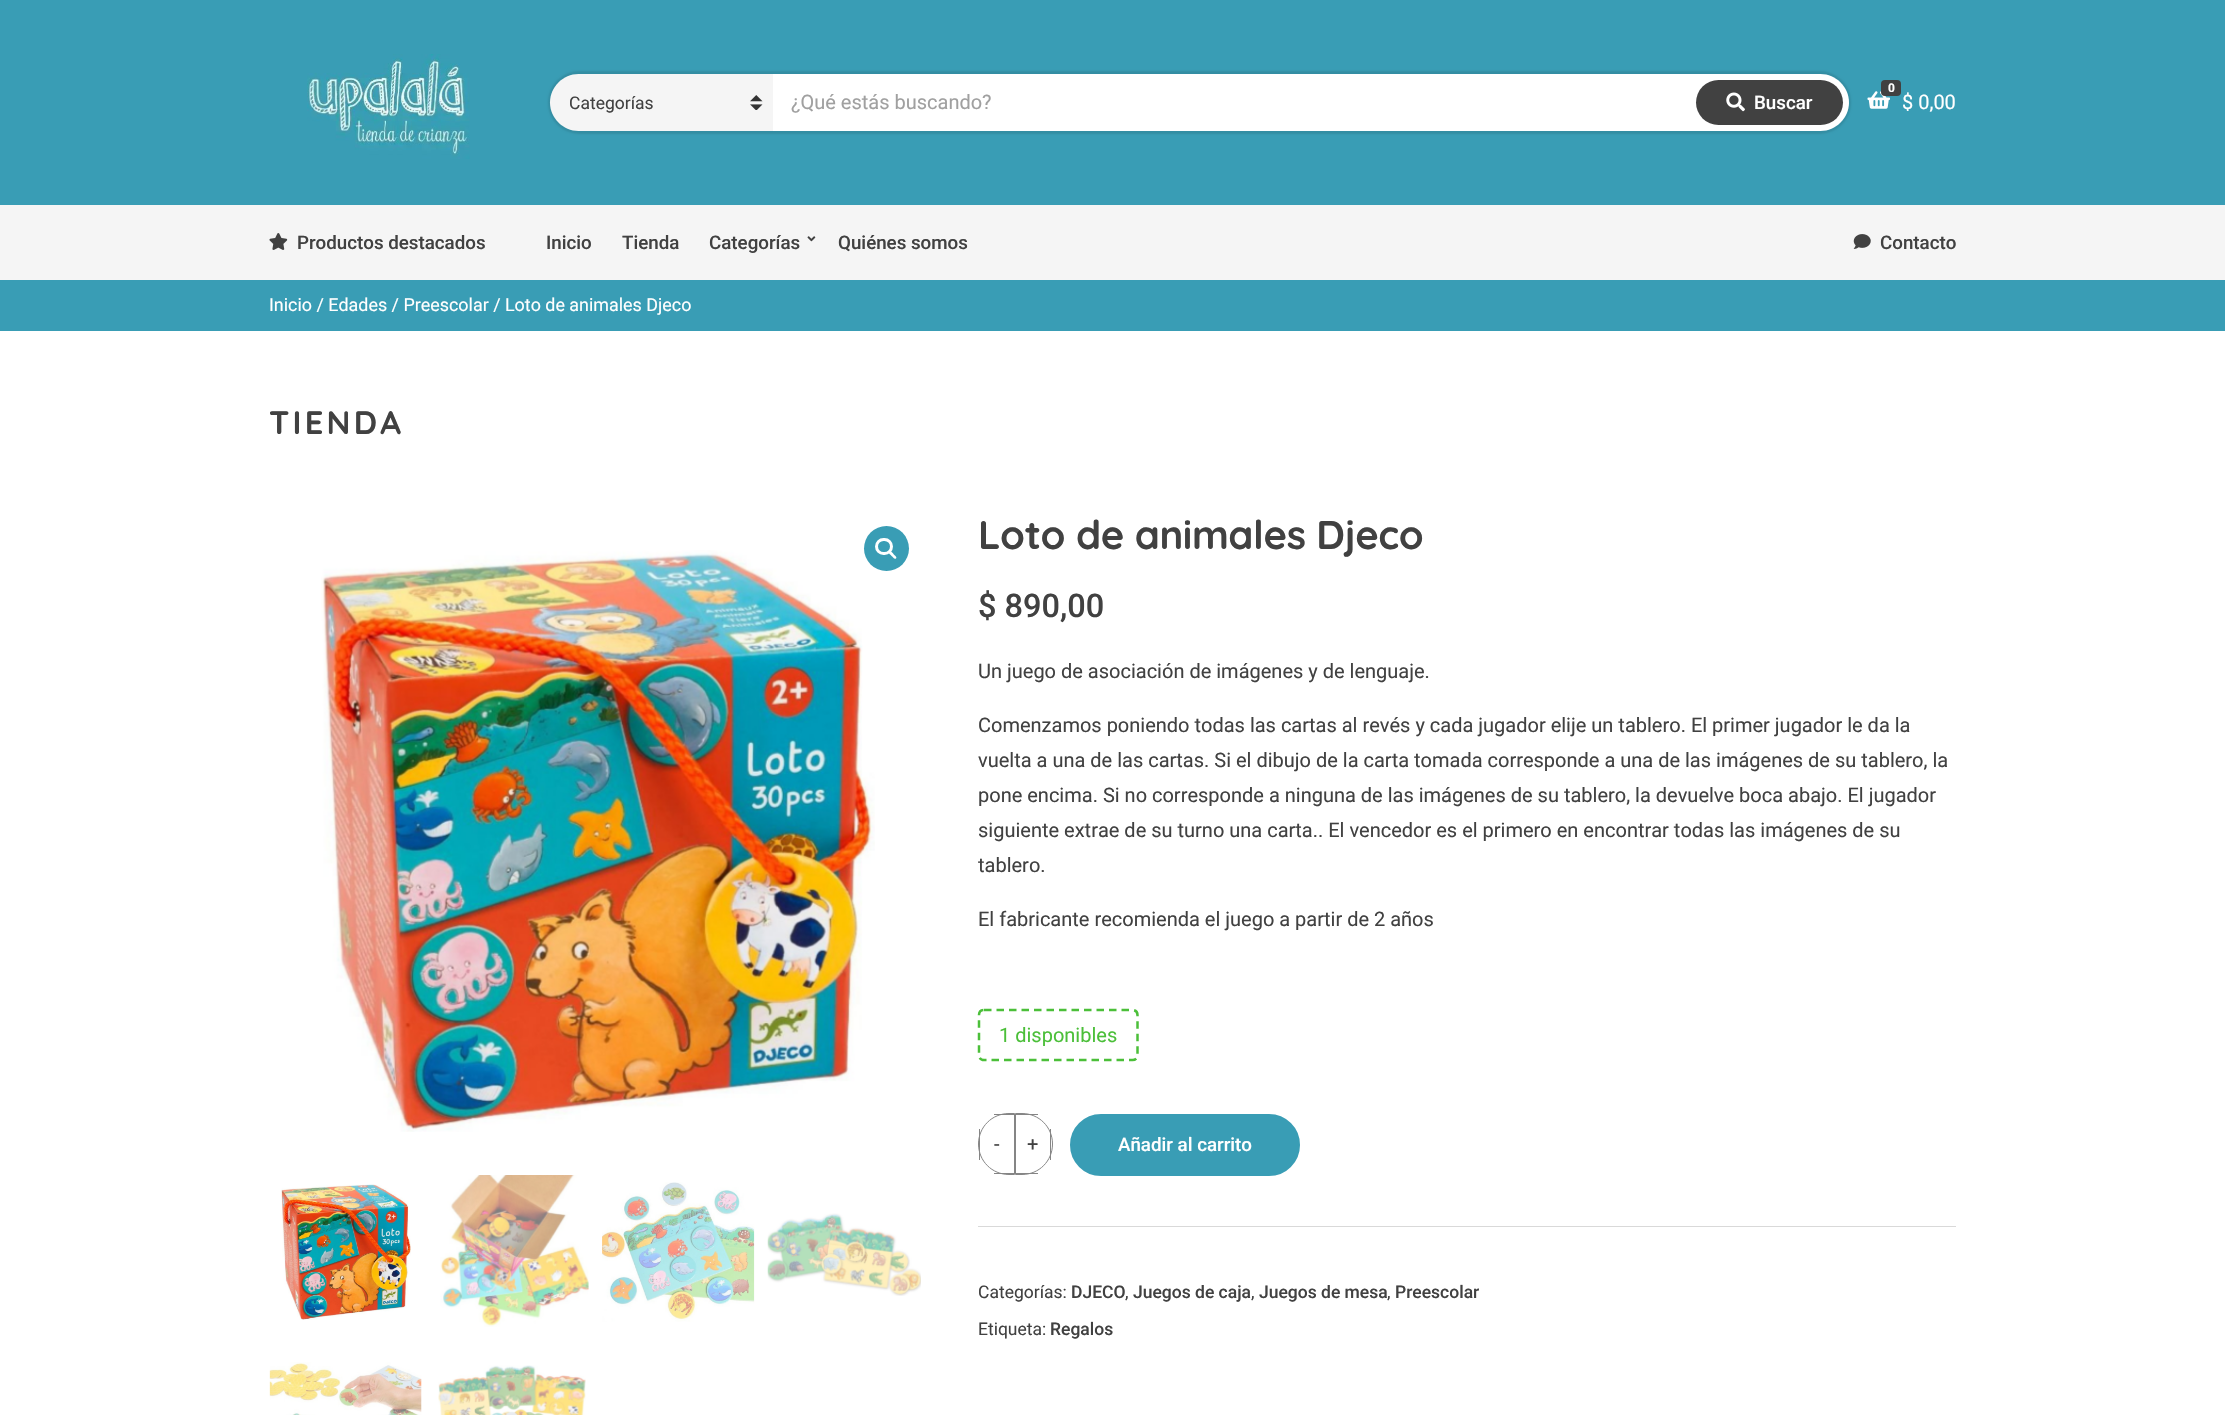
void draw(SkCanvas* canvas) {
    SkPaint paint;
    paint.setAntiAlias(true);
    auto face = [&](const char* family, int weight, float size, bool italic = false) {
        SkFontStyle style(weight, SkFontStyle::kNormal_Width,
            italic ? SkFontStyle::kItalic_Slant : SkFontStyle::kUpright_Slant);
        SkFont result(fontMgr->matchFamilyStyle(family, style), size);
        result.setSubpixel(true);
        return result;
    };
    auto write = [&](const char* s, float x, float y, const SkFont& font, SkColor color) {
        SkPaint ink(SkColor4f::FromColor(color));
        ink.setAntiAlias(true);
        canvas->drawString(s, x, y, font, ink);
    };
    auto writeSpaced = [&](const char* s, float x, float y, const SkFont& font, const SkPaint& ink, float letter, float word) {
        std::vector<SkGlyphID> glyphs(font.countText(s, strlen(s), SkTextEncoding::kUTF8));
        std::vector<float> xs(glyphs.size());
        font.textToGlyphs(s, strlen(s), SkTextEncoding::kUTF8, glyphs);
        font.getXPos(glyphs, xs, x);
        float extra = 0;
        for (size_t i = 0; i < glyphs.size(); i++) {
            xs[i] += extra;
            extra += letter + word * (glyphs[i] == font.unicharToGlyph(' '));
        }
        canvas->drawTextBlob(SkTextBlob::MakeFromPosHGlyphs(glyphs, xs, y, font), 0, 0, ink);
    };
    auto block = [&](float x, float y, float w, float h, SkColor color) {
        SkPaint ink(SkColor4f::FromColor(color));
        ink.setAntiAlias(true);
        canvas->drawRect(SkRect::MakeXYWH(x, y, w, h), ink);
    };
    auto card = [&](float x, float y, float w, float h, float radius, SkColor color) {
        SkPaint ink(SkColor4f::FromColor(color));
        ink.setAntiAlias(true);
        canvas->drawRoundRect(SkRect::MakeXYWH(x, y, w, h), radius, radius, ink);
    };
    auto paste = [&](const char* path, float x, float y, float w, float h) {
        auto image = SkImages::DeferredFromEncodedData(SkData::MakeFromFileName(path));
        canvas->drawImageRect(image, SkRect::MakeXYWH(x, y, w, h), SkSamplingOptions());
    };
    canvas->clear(SK_ColorWHITE);
    block(0, 0, 2225, 205, SkColorSetRGB(57, 157, 181));
    paste("pic1.png", 307, 54, 163, 105);
    paint.setColor(SkColorSetARGB(26, 0, 0, 0));
    paint.setMaskFilter(SkMaskFilter::MakeBlur(kNormal_SkBlurStyle, 1));
    canvas->drawRoundRect(SkRect::MakeXYWH(548, 71, 1303, 63), 31.5f, 31.5f, paint);
    paint.setMaskFilter(nullptr);
    paint.setColor(SkColorSetRGB(245, 245, 245));
    canvas->drawPath(SkPathBuilder().moveTo(578.5f, 74).lineTo(773, 74).lineTo(773, 131).lineTo(578.5f, 131).cubicTo(563, 131, 550, 118, 550, 102.5f).cubicTo(550, 87, 563, 74, 578.5f, 74).close().detach(), paint);
    paste("pic2.png", 750, 95, 13, 15);
    auto kFont1 = face("Roboto", 400, 17.5f);
    write("Categorías", 569, 109, kFont1, SkColorSetRGB(65, 65, 65));
    paint.setColor(SK_ColorWHITE);
    canvas->drawPath(SkPathBuilder().moveTo(773, 74).lineTo(1820.5f, 74).cubicTo(1836, 74, 1849, 87, 1849, 102.5f).cubicTo(1849, 118, 1836, 131, 1820.5f, 131).lineTo(773, 131).close().detach(), paint);
    auto kFont2 = face("Roboto", 400, 20);
    write("¿Qué estás buscando?", 791, 109, kFont2, SkColorSetRGB(160, 160, 160));
    card(1696, 80, 147, 45, 22.5f, SkColorSetRGB(65, 65, 65));
    paste("pic3.png", 1726, 92, 19, 20);
    auto kFont3 = face("Roboto", 500, 18.75f);
    write("Buscar", 1754, 109, kFont3, SK_ColorWHITE);
    paste("pic4.png", 1867, 91, 23, 18);
    card(1881, 80, 20, 16, 4, SkColorSetRGB(65, 65, 65));
    auto kFont4 = face("Roboto", 700, 12);
    write("0", 1888, 92, kFont4, SK_ColorWHITE);
    write("$ 0,00", 1902, 109, kFont2, SK_ColorWHITE);
    block(0, 205, 2225, 75, SkColorSetRGB(245, 245, 245));
    paste("pic5.png", 269, 233, 19, 17);
    write("Productos destacados", 297, 249, kFont3, SkColorSetRGB(65, 65, 65));
    write("Inicio", 546, 249, kFont3, SkColorSetRGB(65, 65, 65));
    write("Tienda", 622, 249, kFont3, SkColorSetRGB(65, 65, 65));
    write("Categorías", 709, 249, kFont3, SkColorSetRGB(65, 65, 65));
    paste("pic6.png", 807, 236, 9, 6);
    write("Quiénes somos", 838, 249, kFont3, SkColorSetRGB(65, 65, 65));
    paste("pic7.png", 1853, 234, 18, 15);
    write("Contacto", 1880, 249, kFont3, SkColorSetRGB(65, 65, 65));
    block(0, 280, 2225, 51, SkColorSetRGB(57, 157, 181));
    auto kFont5 = face("Roboto", 400, 17.9f);
    write("Inicio / Edades / Preescolar / Loto de animales Djeco", 269, 311, kFont5, SK_ColorWHITE);
    auto kFont6 = face("Quicksand", 700, 32.5f);
    paint.setColor(SkColorSetRGB(65, 65, 65));
    writeSpaced("TIENDA", 269, 434, kFont6, paint, 3.25f, 0);
    paste("pic8.png", 321, 550, 554, 582);
    paint.setColor(SkColorSetRGB(57, 157, 181));
    canvas->drawCircle(886.5f, 548.5f, 22.5f, paint);
    paint.setStyle(SkPaint::kStroke_Style);
    paint.setStrokeWidth(3);
    paint.setColor(SK_ColorWHITE);
    canvas->drawRoundRect(SkRect::MakeXYWH(876.5f, 539.5f, 15, 14), 7, 7, paint);
    paint.setStyle(SkPaint::kFill_Style);
    canvas->drawPath(SkPathBuilder().moveTo(889, 551.5f).cubicTo(890.5f, 550, 892.5f, 553, 893.5f, 554).cubicTo(894, 555, 897.5f, 557, 896, 558.5f).cubicTo(894.5f, 560, 892.5f, 556.5f, 891.5f, 556).cubicTo(891, 555, 887.5f, 553, 889, 551.5f).close().detach(), paint);
    paste("pic9.png", 281, 1184, 130, 136);
    paste("pic10.png", 440, 1175, 149, 152);
    paste("pic11.png", 602, 1182, 153, 140);
    paste("pic12.png", 767, 1213, 154, 83);
    paste("pic13.png", 269, 1362, 153, 53);
    paste("pic14.png", 438, 1365, 148, 50);
    auto kFont7 = face("Quicksand", 700, 40);
    paint.setColor(SkColorSetRGB(65, 65, 65));
    writeSpaced("Loto de animales Djeco", 978, 549, kFont7, paint, -0.4f, 0);
    auto kFont8 = face("Roboto", 500, 32.5f);
    write("$ 890,00", 978, 617, kFont8, SkColorSetRGB(65, 65, 65));
    write("Un juego de asociación de imágenes y de lenguaje.", 978, 678, kFont2, SkColorSetRGB(65, 65, 65));
    write("Comenzamos poniendo todas las cartas al revés y cada jugador elije un tablero. El primer jugador le da la", 978, 732, kFont2, SkColorSetRGB(65, 65, 65));
    write("vuelta a una de las cartas. Si el dibujo de la carta tomada corresponde a una de las imágenes de su tablero, la", 978, 767, kFont2, SkColorSetRGB(65, 65, 65));
    write("pone encima. Si no corresponde a ninguna de las imágenes de su tablero, la devuelve boca abajo. El jugador", 978, 802, kFont2, SkColorSetRGB(65, 65, 65));
    write("siguiente extrae de su turno una carta.. El vencedor es el primero en encontrar todas las imágenes de su", 978, 837, kFont2, SkColorSetRGB(65, 65, 65));
    write("tablero.", 978, 872, kFont2, SkColorSetRGB(65, 65, 65));
    write("El fabricante recomienda el juego a partir de 2 años", 978, 926, kFont2, SkColorSetRGB(65, 65, 65));
    paint.setStyle(SkPaint::kStroke_Style);
    paint.setStrokeWidth(2.5f);
    paint.setColor(SkColorSetRGB(75, 191, 57));
    paint.setPathEffect(SkDashPathEffect::Make({{7.5f, 5}}, 0));
    canvas->drawPath(SkPathBuilder().moveTo(984, 1010).lineTo(1132.5f, 1010).cubicTo(1135.5f, 1010, 1137.5f, 1012, 1137.5f, 1015).lineTo(1137.5f, 1055).cubicTo(1137.5f, 1058, 1135.5f, 1060, 1132.5f, 1060).lineTo(984, 1060).cubicTo(981, 1060, 979, 1058, 979, 1055).lineTo(979, 1015).cubicTo(979, 1012, 981, 1010, 984, 1010).close().detach(), paint);
    paint.setPathEffect(nullptr);
    write("1 disponibles", 999, 1042, kFont2, SkColorSetRGB(75, 191, 57));
    paint.setStrokeWidth(1);
    paint.setColor(SkColorSetRGB(133, 133, 133));
    canvas->drawPath(SkPathBuilder().moveTo(1009, 1113.5f).lineTo(1014.5f, 1113.5f).lineTo(1014.5f, 1174.5f).lineTo(1009, 1174.5f).cubicTo(992, 1174.5f, 978.5f, 1161, 978.5f, 1144).cubicTo(978.5f, 1127, 992, 1113.5f, 1009, 1113.5f).close().detach(), paint);
    block(994, 1114, 21, 1, SkColorSetRGB(133, 133, 133));
    block(994, 1173, 21, 1, SkColorSetRGB(133, 133, 133));
    block(979, 1129, 1, 31, SkColorSetRGB(133, 133, 133));
    write("-", 994, 1151, kFont2, SkColorSetRGB(65, 65, 65));
    canvas->drawPath(SkPathBuilder().moveTo(1015.5f, 1113.5f).lineTo(1022, 1113.5f).cubicTo(1039, 1113.5f, 1052.5f, 1127, 1052.5f, 1144).cubicTo(1052.5f, 1161, 1039, 1174.5f, 1022, 1174.5f).lineTo(1015.5f, 1174.5f).close().detach(), paint);
    block(1015, 1114, 23, 1, SkColorSetRGB(133, 133, 133));
    block(1050, 1129, 1, 31, SkColorSetRGB(133, 133, 133));
    block(1015, 1173, 23, 1, SkColorSetRGB(133, 133, 133));
    write("+", 1027, 1151, kFont2, SkColorSetRGB(65, 65, 65));
    paint.setStyle(SkPaint::kFill_Style);
    paint.setColor(SkColorSetRGB(57, 157, 181));
    canvas->drawRoundRect(SkRect::MakeXYWH(1071.5f, 1115.5f, 227, 59), 29.5f, 29.5f, paint);
    paint.setStyle(SkPaint::kStroke_Style);
    paint.setStrokeWidth(3);
    canvas->drawRoundRect(SkRect::MakeXYWH(1071.5f, 1115.5f, 227, 59), 29.5f, 29.5f, paint);
    write("Añadir al carrito", 1118, 1151, kFont3, SK_ColorWHITE);
    block(978, 1226, 978, 1, SkColorSetRGB(217, 217, 217));
    write("Categorías:", 978, 1298, kFont1, SkColorSetRGB(65, 65, 65));
    auto kFont9 = face("Roboto", 500, 17.5f);
    write("DJECO", 1071, 1298, kFont9, SkColorSetRGB(65, 65, 65));
    write(",", 1125, 1298, kFont1, SkColorSetRGB(65, 65, 65));
    write("Juegos de caja", 1133, 1298, kFont9, SkColorSetRGB(65, 65, 65));
    write(",", 1251, 1298, kFont1, SkColorSetRGB(65, 65, 65));
    write("Juegos de mesa", 1259, 1298, kFont9, SkColorSetRGB(65, 65, 65));
    write(",", 1387, 1298, kFont1, SkColorSetRGB(65, 65, 65));
    write("Preescolar", 1395, 1298, kFont9, SkColorSetRGB(65, 65, 65));
    write("Etiqueta:", 978, 1335, kFont1, SkColorSetRGB(65, 65, 65));
    write("Regalos", 1050, 1335, kFont9, SkColorSetRGB(65, 65, 65));
}
